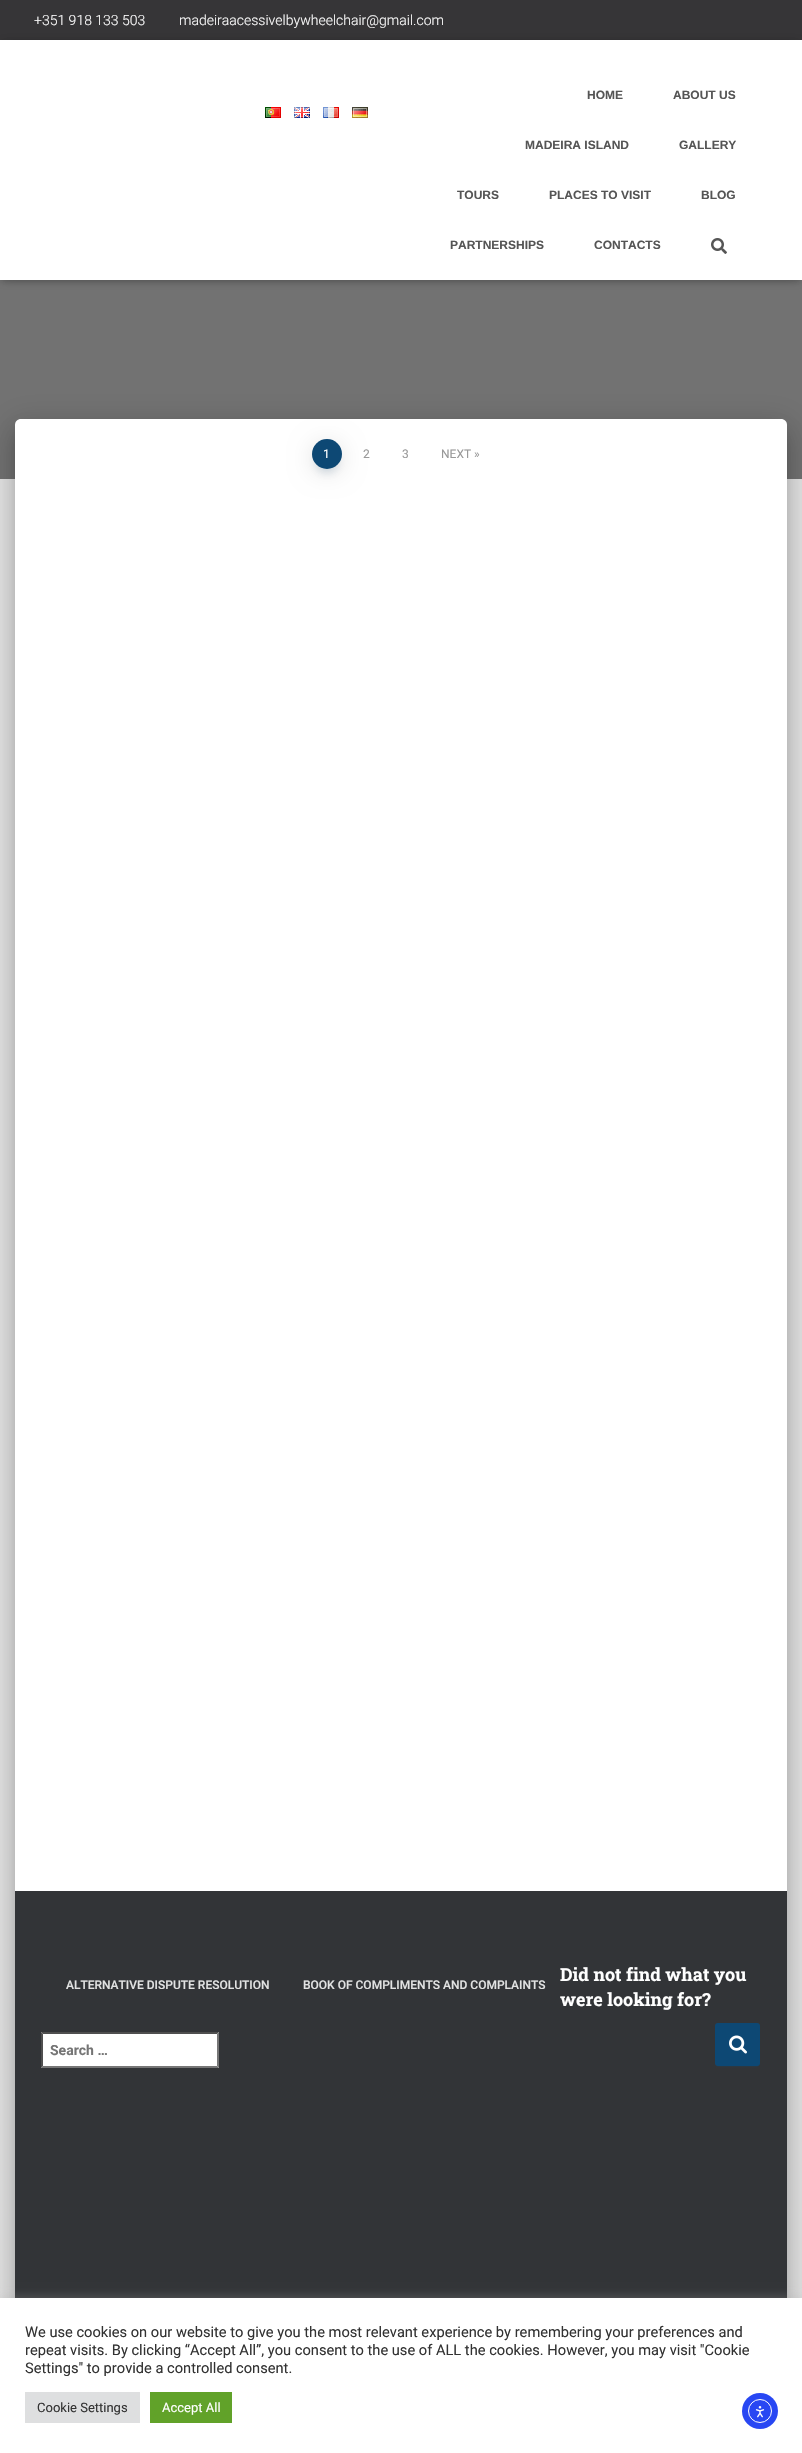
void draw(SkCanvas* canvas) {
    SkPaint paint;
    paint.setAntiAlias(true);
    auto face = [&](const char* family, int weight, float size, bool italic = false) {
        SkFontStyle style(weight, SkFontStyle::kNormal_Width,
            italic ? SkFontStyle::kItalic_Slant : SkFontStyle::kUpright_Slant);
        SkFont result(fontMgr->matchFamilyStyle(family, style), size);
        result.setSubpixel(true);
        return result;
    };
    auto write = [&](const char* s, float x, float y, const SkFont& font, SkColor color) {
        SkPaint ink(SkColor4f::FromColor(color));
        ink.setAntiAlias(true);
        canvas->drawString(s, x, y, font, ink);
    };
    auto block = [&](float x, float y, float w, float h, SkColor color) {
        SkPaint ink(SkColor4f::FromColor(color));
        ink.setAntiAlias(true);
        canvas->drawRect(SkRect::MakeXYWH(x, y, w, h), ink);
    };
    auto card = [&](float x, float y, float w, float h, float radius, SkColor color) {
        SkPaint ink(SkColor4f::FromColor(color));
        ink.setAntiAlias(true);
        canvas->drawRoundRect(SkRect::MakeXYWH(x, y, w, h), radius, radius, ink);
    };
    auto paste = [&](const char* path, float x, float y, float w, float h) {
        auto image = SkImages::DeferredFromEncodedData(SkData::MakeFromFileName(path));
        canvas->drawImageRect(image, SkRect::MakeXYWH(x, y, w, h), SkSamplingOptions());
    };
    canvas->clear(SkColorSetRGB(229, 229, 229));
    block(0, 0, 802, 40, SkColorSetRGB(54, 53, 55));
    auto kFont1 = face("Roboto", 300, 14);
    write("+351 918 133 503", 34, 25, kFont1, SK_ColorWHITE);
    write("madeiraacessivelbywheelchair@gmail.com", 179, 25, kFont1, SK_ColorWHITE);
    block(0, 280, 802, 199, SkColorSetRGB(114, 114, 114));
    paint.setColor(SkColorSetARGB(26, 0, 0, 0));
    paint.setMaskFilter(SkMaskFilter::MakeBlur(kNormal_SkBlurStyle, 2.5f));
    canvas->drawRect(SkRect::MakeXYWH(2, 46, 798, 236), paint);
    paint.setMaskFilter(nullptr);
    paint.setColor(SkColorSetARGB(31, 0, 0, 0));
    paint.setMaskFilter(SkMaskFilter::MakeBlur(kNormal_SkBlurStyle, 5));
    canvas->drawRect(SkRect::MakeXYWH(0, 41, 802, 240), paint);
    paint.setMaskFilter(nullptr);
    paint.setColor(SkColorSetARGB(107, 0, 0, 0));
    paint.setMaskFilter(SkMaskFilter::MakeBlur(kNormal_SkBlurStyle, 5));
    canvas->drawRect(SkRect::MakeXYWH(6, 47, 790, 228), paint);
    paint.setMaskFilter(nullptr);
    block(0, 40, 802, 240, SK_ColorWHITE);
    paste("pic1.png", 265, 107, 16, 11);
    paste("pic2.png", 294, 107, 16, 11);
    paste("pic3.png", 323, 107, 16, 11);
    paste("pic4.png", 352, 107, 16, 11);
    auto kFont2 = face("Liberation Sans", 700, 12);
    write("HOME", 587, 99, kFont2, SkColorSetRGB(85, 85, 85));
    write("ABOUT US", 673, 99, kFont2, SkColorSetRGB(85, 85, 85));
    write("MADEIRA ISLAND", 525, 149, kFont2, SkColorSetRGB(85, 85, 85));
    write("GALLERY", 679, 149, kFont2, SkColorSetRGB(85, 85, 85));
    write("TOURS", 457, 199, kFont2, SkColorSetRGB(85, 85, 85));
    write("PLACES TO VISIT", 549, 199, kFont2, SkColorSetRGB(85, 85, 85));
    write("BLOG", 701, 199, kFont2, SkColorSetRGB(85, 85, 85));
    write("PARTNERSHIPS", 450, 249, kFont2, SkColorSetRGB(85, 85, 85));
    write("CONTACTS", 594, 249, kFont2, SkColorSetRGB(85, 85, 85));
    paste("pic5.png", 711, 238, 16, 16);
    paint.setColor(SkColorSetARGB(51, 0, 0, 0));
    paint.setMaskFilter(SkMaskFilter::MakeBlur(kNormal_SkBlurStyle, 5));
    canvas->drawRoundRect(SkRect::MakeXYWH(20, 432, 762, 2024), 1, 1, paint);
    paint.setMaskFilter(nullptr);
    paint.setColor(SkColorSetARGB(31, 0, 0, 0));
    paint.setMaskFilter(SkMaskFilter::MakeBlur(kNormal_SkBlurStyle, 15));
    canvas->drawRoundRect(SkRect::MakeXYWH(10, 420, 782, 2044), 11, 11, paint);
    paint.setMaskFilter(nullptr);
    paint.setColor(SkColorSetARGB(36, 0, 0, 0));
    paint.setMaskFilter(SkMaskFilter::MakeBlur(kNormal_SkBlurStyle, 12));
    canvas->drawRoundRect(SkRect::MakeXYWH(13, 433, 776, 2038), 8, 8, paint);
    paint.setMaskFilter(nullptr);
    paint.setColor(SK_ColorWHITE);
    canvas->drawPath(SkPathBuilder().moveTo(21, 419).lineTo(781, 419).cubicTo(784.5f, 419, 787, 421.5f, 787, 425).lineTo(787, 2453).lineTo(15, 2453).lineTo(15, 425).cubicTo(15, 421.5f, 17.5f, 419, 21, 419).close().detach(), paint);
    paint.setColor(SkColorSetARGB(51, 13, 72, 116));
    paint.setMaskFilter(SkMaskFilter::MakeBlur(kNormal_SkBlurStyle, 5));
    canvas->drawRoundRect(SkRect::MakeXYWH(317, 452, 20, 20), 10, 10, paint);
    paint.setMaskFilter(nullptr);
    paint.setColor(SkColorSetARGB(31, 0, 0, 0));
    paint.setMaskFilter(SkMaskFilter::MakeBlur(kNormal_SkBlurStyle, 11.5f));
    canvas->drawRoundRect(SkRect::MakeXYWH(312, 443, 30, 30), 15, 15, paint);
    paint.setMaskFilter(nullptr);
    paint.setColor(SkColorSetRGB(13, 72, 116));
    canvas->drawCircle(327, 454, 15, paint);
    auto kFont3 = face("Roboto", 400, 12);
    write("1", 323, 458, kFont3, SK_ColorWHITE);
    write("2", 363, 458, kFont3, SkColorSetRGB(153, 153, 153));
    write("3", 402, 458, kFont3, SkColorSetRGB(153, 153, 153));
    write("NEXT »", 441, 458, kFont3, SkColorSetRGB(153, 153, 153));
    block(15, 1891, 772, 407, SkColorSetRGB(50, 52, 55));
    auto kFont4 = face("Roboto Slab", 700, 18);
    write("Did not find what you", 560, 1981, kFont4, SK_ColorWHITE);
    write("were looking for?", 560, 2006, kFont4, SK_ColorWHITE);
    block(41, 2032, 178, 36, SK_ColorWHITE);
    paint.setColor(SkColorSetRGB(79, 79, 79));
    canvas->drawPath(SkPathBuilder().moveTo(41, 2032).lineTo(219, 2032).lineTo(217, 2034).lineTo(43, 2034).close().detach(), paint);
    paint.setColor(SkColorSetRGB(118, 118, 118));
    canvas->drawPath(SkPathBuilder().moveTo(219, 2032).lineTo(219, 2068).lineTo(217, 2066).lineTo(217, 2034).close().detach(), paint);
    canvas->drawPath(SkPathBuilder().moveTo(219, 2068).lineTo(41, 2068).lineTo(43, 2066).lineTo(217, 2066).close().detach(), paint);
    paint.setColor(SkColorSetRGB(79, 79, 79));
    canvas->drawPath(SkPathBuilder().moveTo(41, 2068).lineTo(41, 2032).lineTo(43, 2034).lineTo(43, 2066).close().detach(), paint);
    auto kFont5 = face("Roboto", 700, 14);
    write("Search …", 50, 2055, kFont5, SkColorSetRGB(117, 117, 117));
    paint.setColor(SkColorSetARGB(51, 13, 72, 116));
    paint.setMaskFilter(SkMaskFilter::MakeBlur(kNormal_SkBlurStyle, 0.5f));
    canvas->drawRoundRect(SkRect::MakeXYWH(717, 2028, 41, 39), 1, 1, paint);
    paint.setMaskFilter(nullptr);
    card(715, 2023, 45, 43, 3, SkColorSetRGB(13, 72, 116));
    paste("pic6.png", 729, 2035, 18, 19);
    auto kFont6 = face("Roboto", 500, 12);
    write("ALTERNATIVE DISPUTE RESOLUTION", 66, 1989, kFont6, SkColorSetRGB(226, 227, 227));
    write("BOOK OF COMPLIMENTS AND COMPLAINTS", 303, 1989, kFont6, SkColorSetRGB(226, 227, 227));
    paint.setColor(SkColorSetARGB(77, 172, 171, 171));
    paint.setMaskFilter(SkMaskFilter::MakeBlur(kNormal_SkBlurStyle, 5));
    canvas->drawRect(SkRect::MakeXYWH(0, 2297, 802, 155), paint);
    paint.setMaskFilter(nullptr);
    block(0, 2298, 802, 155, SK_ColorWHITE);
    auto kFont7 = face("Roboto", 400, 14.65f);
    write("We use cookies on our website to give you the most relevant experience by remembering your preferences and", 25, 2337, kFont7, SkColorSetRGB(51, 51, 51));
    write("repeat visits. By clicking “Accept All”, you consent to the use of ALL the cookies. However, you may visit \"Cookie", 25, 2355, kFont7, SkColorSetRGB(51, 51, 51));
    write("Settings\" to provide a controlled consent.", 25, 2373, kFont7, SkColorSetRGB(51, 51, 51));
    block(25, 2392, 115, 31, SkColorSetRGB(222, 223, 224));
    auto kFont8 = face("Roboto", 400, 13);
    write("Cookie Settings", 37, 2412, kFont8, SkColorSetRGB(51, 51, 51));
    block(150, 2392, 82, 31, SkColorSetRGB(97, 162, 41));
    write("Accept All", 162, 2412, kFont8, SK_ColorWHITE);
    paint.setColor(SkColorSetRGB(40, 71, 243));
    canvas->drawCircle(760, 2411, 18, paint);
    paint.setStyle(SkPaint::kStroke_Style);
    paint.setStrokeWidth(1);
    paint.setColor(SK_ColorWHITE);
    canvas->drawCircle(760, 2411, 11.5f, paint);
    paste("pic7.png", 755, 2406, 10, 12);
}
